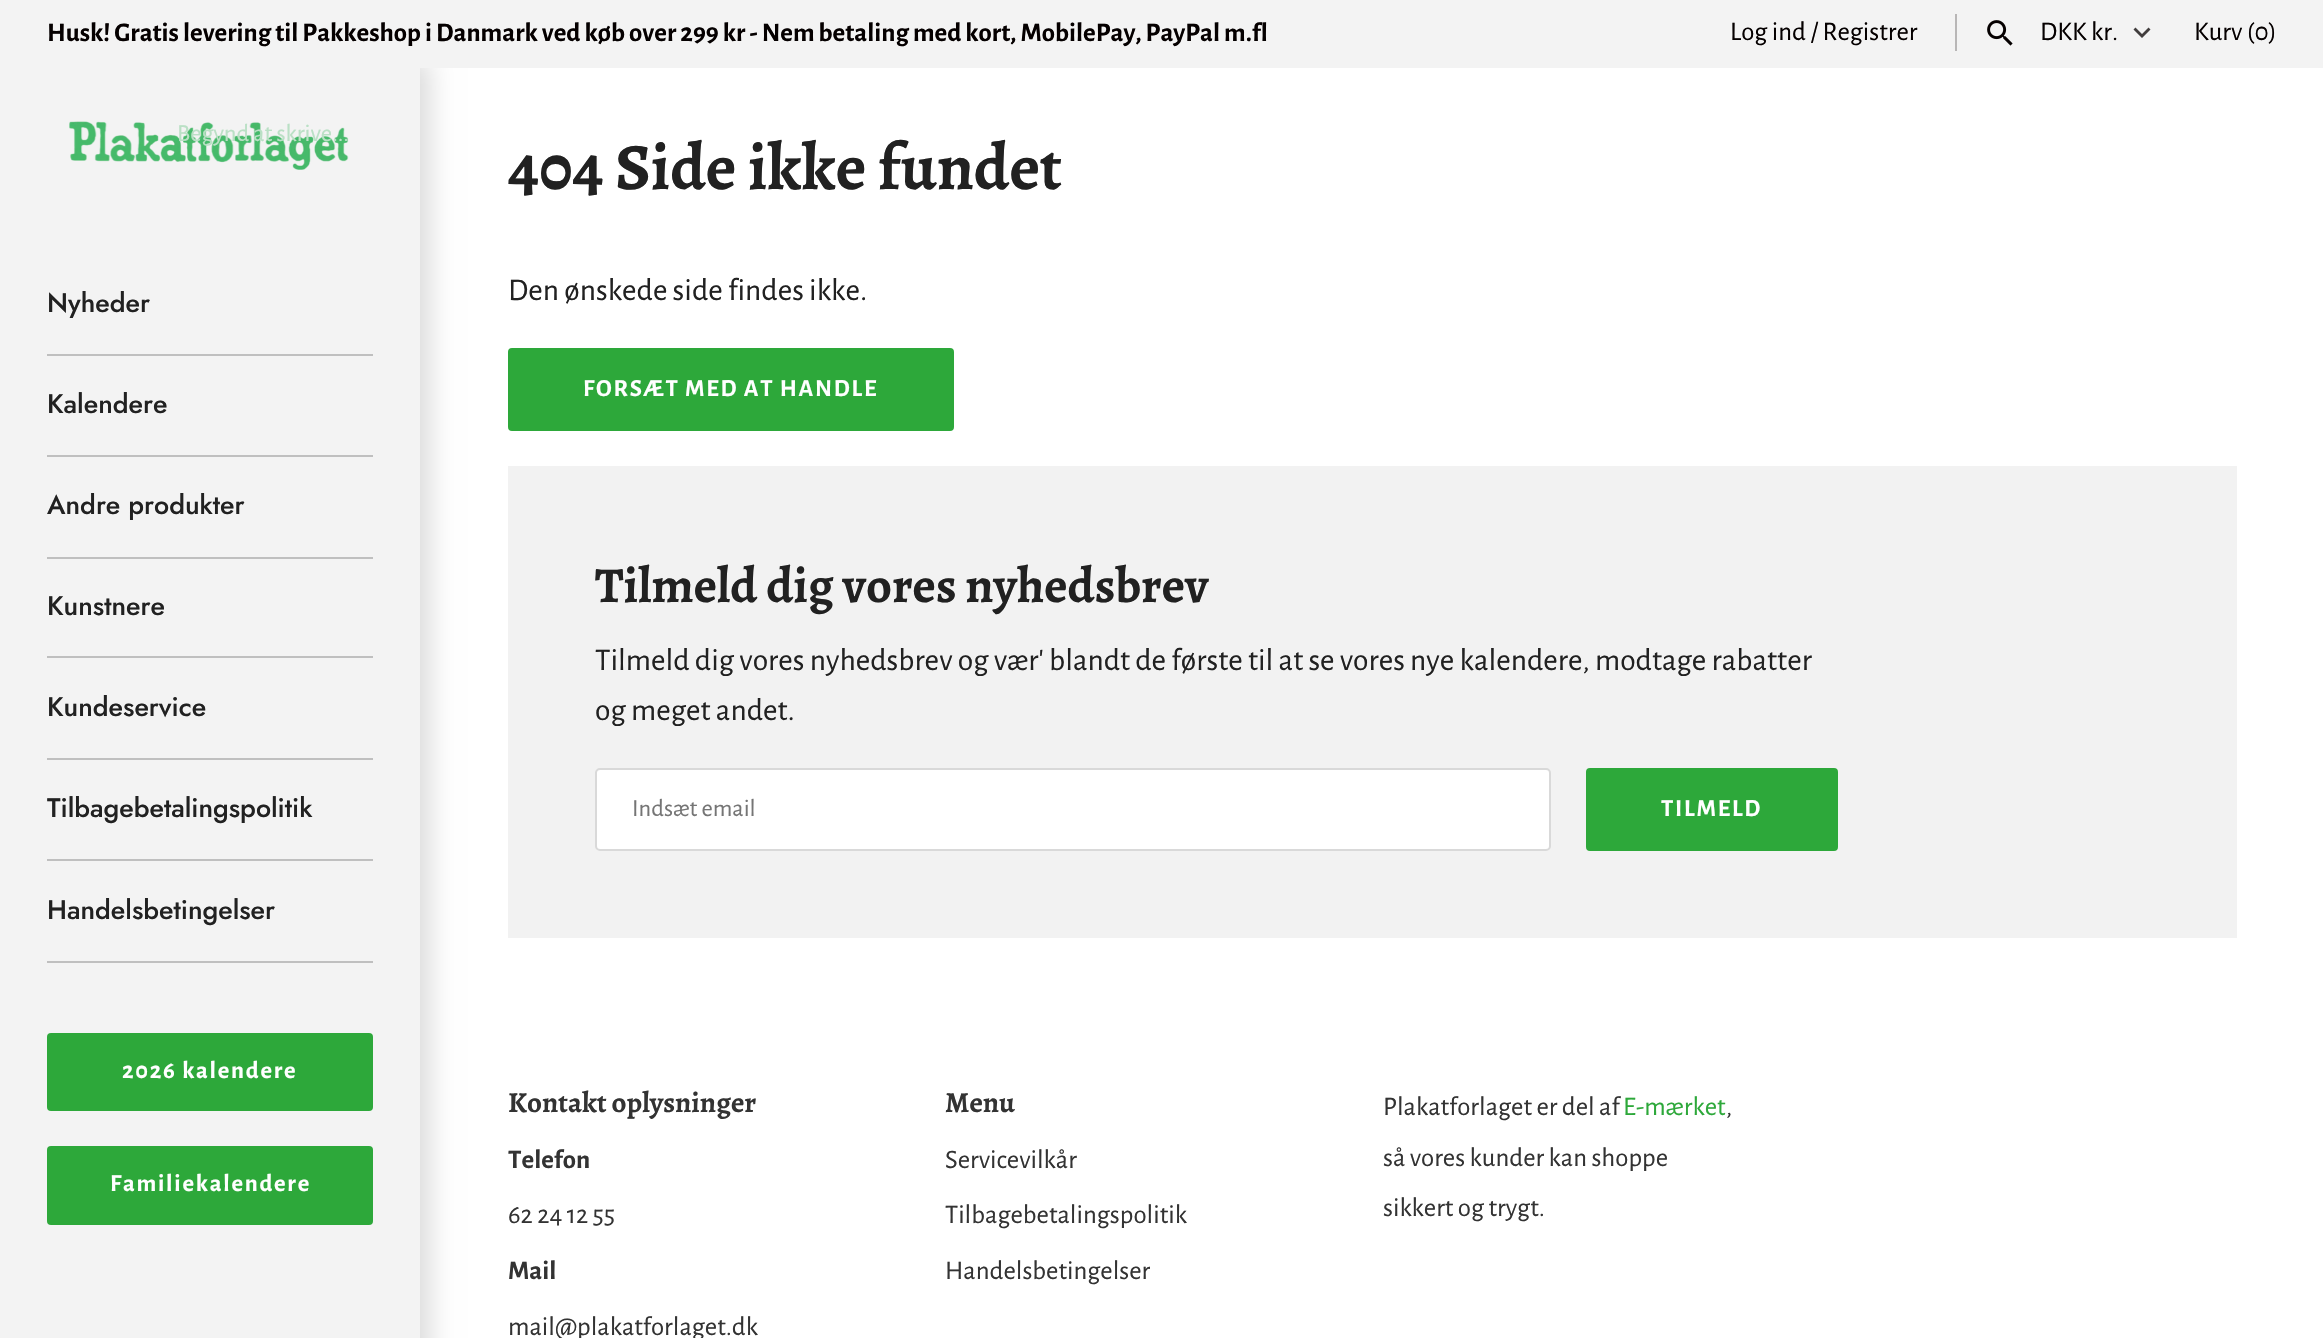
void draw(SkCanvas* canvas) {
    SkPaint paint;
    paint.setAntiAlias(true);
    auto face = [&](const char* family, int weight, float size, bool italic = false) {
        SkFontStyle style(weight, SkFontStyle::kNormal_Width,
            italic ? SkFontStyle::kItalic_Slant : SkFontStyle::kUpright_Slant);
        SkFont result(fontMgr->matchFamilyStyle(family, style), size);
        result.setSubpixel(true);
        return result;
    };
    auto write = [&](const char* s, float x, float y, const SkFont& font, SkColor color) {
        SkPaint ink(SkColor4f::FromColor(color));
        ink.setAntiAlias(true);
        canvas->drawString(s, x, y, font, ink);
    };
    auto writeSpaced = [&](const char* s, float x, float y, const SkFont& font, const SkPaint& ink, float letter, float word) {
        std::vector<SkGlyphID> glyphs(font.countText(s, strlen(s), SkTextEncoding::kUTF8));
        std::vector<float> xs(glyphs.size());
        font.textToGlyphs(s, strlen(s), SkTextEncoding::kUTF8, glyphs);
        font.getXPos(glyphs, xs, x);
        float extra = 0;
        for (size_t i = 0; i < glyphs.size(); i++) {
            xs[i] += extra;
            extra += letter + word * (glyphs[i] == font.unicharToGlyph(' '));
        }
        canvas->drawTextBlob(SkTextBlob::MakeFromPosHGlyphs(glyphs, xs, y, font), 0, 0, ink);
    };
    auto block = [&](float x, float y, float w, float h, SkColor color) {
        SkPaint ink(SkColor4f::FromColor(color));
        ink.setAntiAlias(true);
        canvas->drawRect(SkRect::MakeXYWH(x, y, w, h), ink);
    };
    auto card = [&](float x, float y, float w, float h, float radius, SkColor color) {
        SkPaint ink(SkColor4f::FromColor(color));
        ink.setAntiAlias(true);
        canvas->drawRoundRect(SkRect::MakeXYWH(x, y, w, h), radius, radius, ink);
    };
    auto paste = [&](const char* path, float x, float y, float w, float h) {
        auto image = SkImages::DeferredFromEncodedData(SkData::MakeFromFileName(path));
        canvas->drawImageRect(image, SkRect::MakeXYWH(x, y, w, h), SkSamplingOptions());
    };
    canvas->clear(SK_ColorWHITE);
    paint.setColor(SkColorSetARGB(38, 0, 0, 0));
    paint.setMaskFilter(SkMaskFilter::MakeBlur(kNormal_SkBlurStyle, 13));
    canvas->drawRect(SkRect::MakeXYWH(-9, 60, 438, 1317), paint);
    paint.setMaskFilter(nullptr);
    block(0, 0, 2323, 68, SkColorSetRGB(243, 243, 243));
    auto kFont1 = face("Alegreya Sans", 700, 26.8f);
    write("Husk! Gratis levering til Pakkeshop i Danmark ved køb over 299 kr - Nem betaling med kort, MobilePay, PayPal m.fl", 47, 41, kFont1, SkColorSetRGB(5, 0, 0));
    auto kFont2 = face("Alegreya Sans", 400, 26.8f);
    write("Log ind / Registrer", 1730, 40, kFont2, SkColorSetRGB(5, 0, 0));
    block(1955, 14, 2, 37, SkColorSetRGB(184, 182, 182));
    paste("pic1.png", 1987, 20, 26, 26);
    write("DKK kr.", 2040, 40, kFont2, SkColorSetRGB(5, 0, 0));
    paint.setColor(SkColorSetRGB(65, 61, 61));
    canvas->drawPath(SkPathBuilder().moveTo(2135.5f, 27.5f).lineTo(2142, 34).lineTo(2148.5f, 27.5f).lineTo(2150.5f, 29.5f).lineTo(2142, 38).lineTo(2133.5f, 29.5f).close().detach(), paint);
    write("Kurv (0)", 2194, 40, kFont2, SkColorSetRGB(5, 0, 0));
    block(0, 68, 420, 1270, SkColorSetRGB(243, 243, 243));
    paste("pic2.png", 69, 121, 280, 49);
    auto kFont3 = face("Alegreya Sans", 400, 24.5f);
    write("Begynd at skrive...", 177, 141, kFont3, SkColorSetRGB(186, 224, 197));
    block(47, 354, 326, 2, SkColorSetRGB(191, 191, 191));
    auto kFont4 = face("Jost", 500, 26.8f);
    write("Nyheder", 47, 312, kFont4, SkColorSetRGB(33, 33, 33));
    block(47, 455, 326, 2, SkColorSetRGB(191, 191, 191));
    write("Kalendere", 47, 413, kFont4, SkColorSetRGB(33, 33, 33));
    block(47, 557, 326, 2, SkColorSetRGB(191, 191, 191));
    write("Andre produkter", 47, 514, kFont4, SkColorSetRGB(33, 33, 33));
    block(47, 656, 326, 2, SkColorSetRGB(191, 191, 191));
    write("Kunstnere", 47, 615, kFont4, SkColorSetRGB(33, 33, 33));
    block(47, 758, 326, 2, SkColorSetRGB(191, 191, 191));
    write("Kundeservice", 47, 716, kFont4, SkColorSetRGB(33, 33, 33));
    block(47, 859, 326, 2, SkColorSetRGB(191, 191, 191));
    write("Tilbagebetalingspolitik", 47, 817, kFont4, SkColorSetRGB(33, 33, 33));
    block(47, 961, 326, 2, SkColorSetRGB(191, 191, 191));
    write("Handelsbetingelser", 47, 919, kFont4, SkColorSetRGB(33, 33, 33));
    card(47, 1033, 326, 78, 4, SkColorSetRGB(45, 168, 58));
    auto kFont5 = face("Alegreya Sans", 700, 24.5f);
    paint.setColor(SK_ColorWHITE);
    writeSpaced("2026 kalendere", 122, 1078, kFont5, paint, 1.75f, 0);
    card(47, 1146, 326, 79, 4, SkColorSetRGB(45, 168, 58));
    writeSpaced("Familiekalendere", 110, 1191, kFont5, paint, 1.75f, 0);
    auto kFont6 = face("Alegreya", 700, 66.25f);
    write("404 Side ikke fundet", 508, 189, kFont6, SkColorSetRGB(33, 33, 33));
    auto kFont7 = face("Alegreya Sans", 400, 31.5f);
    write("Den ønskede side findes ikke.", 508, 300, kFont7, SkColorSetRGB(33, 33, 33));
    paint.setColor(SkColorSetRGB(45, 168, 58));
    canvas->drawRoundRect(SkRect::MakeXYWH(509, 349, 444, 81), 3, 3, paint);
    paint.setStyle(SkPaint::kStroke_Style);
    paint.setStrokeWidth(2);
    canvas->drawRoundRect(SkRect::MakeXYWH(509, 349, 444, 81), 3, 3, paint);
    paint.setStyle(SkPaint::kFill_Style);
    paint.setColor(SK_ColorWHITE);
    writeSpaced("FORSÆT MED AT HANDLE", 583, 396, kFont5, paint, 1.75f, 0);
    block(508, 466, 1729, 472, SkColorSetRGB(242, 242, 242));
    auto kFont8 = face("Alegreya", 700, 50.4f);
    write("Tilmeld dig vores nyhedsbrev", 595, 602, kFont8, SkColorSetRGB(33, 33, 33));
    write("Tilmeld dig vores nyhedsbrev og vær' blandt de første til at se vores nye kalendere, modtage rabatter", 595, 670, kFont7, SkColorSetRGB(33, 33, 33));
    write("og meget andet.", 595, 720, kFont7, SkColorSetRGB(33, 33, 33));
    card(595, 768, 956, 83, 5, SK_ColorWHITE);
    paint.setStyle(SkPaint::kStroke_Style);
    paint.setColor(SkColorSetARGB(38, 0, 0, 0));
    canvas->drawRoundRect(SkRect::MakeXYWH(596, 769, 954, 81), 4, 4, paint);
    write("Indsæt email", 632, 816, kFont3, SkColorSetRGB(117, 117, 117));
    paint.setStyle(SkPaint::kFill_Style);
    paint.setColor(SkColorSetRGB(45, 168, 58));
    canvas->drawRoundRect(SkRect::MakeXYWH(1587, 769, 250, 81), 3, 3, paint);
    paint.setStyle(SkPaint::kStroke_Style);
    canvas->drawRoundRect(SkRect::MakeXYWH(1587, 769, 250, 81), 3, 3, paint);
    paint.setStyle(SkPaint::kFill_Style);
    paint.setColor(SK_ColorWHITE);
    writeSpaced("TILMELD", 1661, 816, kFont5, paint, 1.75f, 0);
    auto kFont9 = face("Alegreya", 700, 29);
    write("Kontakt oplysninger", 508, 1112, kFont9, SkColorSetRGB(51, 51, 51));
    write("Telefon", 508, 1168, kFont1, SkColorSetRGB(51, 51, 51));
    write("62 24 12 55", 508, 1223, kFont2, SkColorSetRGB(51, 51, 51));
    write("Mail", 508, 1279, kFont1, SkColorSetRGB(51, 51, 51));
    write("mail@plakatforlaget.dk", 508, 1335, kFont2, SkColorSetRGB(51, 51, 51));
    write("Menu", 945, 1112, kFont9, SkColorSetRGB(51, 51, 51));
    write("Servicevilkår", 945, 1168, kFont2, SkColorSetRGB(51, 51, 51));
    write("Tilbagebetalingspolitik", 945, 1223, kFont2, SkColorSetRGB(51, 51, 51));
    write("Handelsbetingelser", 945, 1279, kFont2, SkColorSetRGB(51, 51, 51));
    write("Plakatforlaget er del af", 1383, 1115, kFont2, SkColorSetRGB(51, 51, 51));
    write("E-mærket", 1623, 1115, kFont2, SkColorSetRGB(45, 168, 58));
    write(",", 1726, 1115, kFont2, SkColorSetRGB(51, 51, 51));
    write("så vores kunder kan shoppe", 1383, 1166, kFont2, SkColorSetRGB(51, 51, 51));
    write("sikkert og trygt.", 1383, 1216, kFont2, SkColorSetRGB(51, 51, 51));
}
